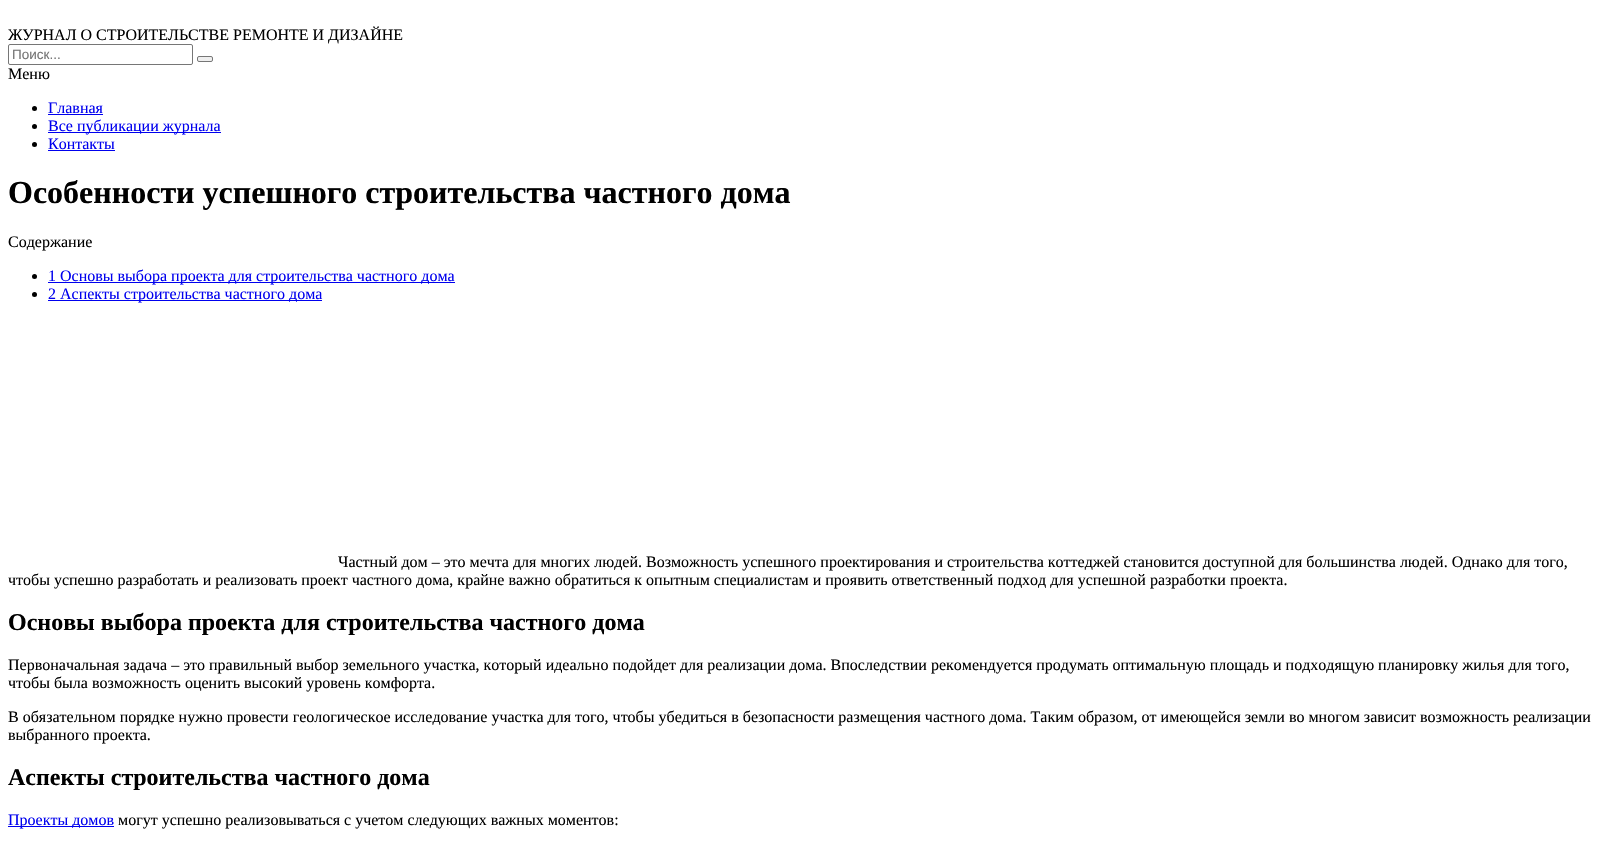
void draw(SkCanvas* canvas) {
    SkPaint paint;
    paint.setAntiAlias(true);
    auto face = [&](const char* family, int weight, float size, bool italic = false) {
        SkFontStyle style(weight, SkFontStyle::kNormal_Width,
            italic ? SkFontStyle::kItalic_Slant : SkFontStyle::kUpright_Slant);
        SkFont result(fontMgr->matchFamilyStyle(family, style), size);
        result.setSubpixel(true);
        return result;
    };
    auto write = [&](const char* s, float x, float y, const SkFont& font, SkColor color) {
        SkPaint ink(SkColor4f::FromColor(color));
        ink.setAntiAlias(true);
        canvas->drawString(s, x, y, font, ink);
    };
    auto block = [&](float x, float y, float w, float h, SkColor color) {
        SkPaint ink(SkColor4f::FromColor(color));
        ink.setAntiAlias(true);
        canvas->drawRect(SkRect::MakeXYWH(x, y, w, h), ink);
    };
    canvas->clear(SK_ColorWHITE);
    auto kFont1 = face("Liberation Serif", 400, 16);
    write("ЖУРНАЛ О СТРОИТЕЛЬСТВЕ РЕМОНТЕ И ДИЗАЙНЕ", 8, 40, kFont1, SK_ColorBLACK);
    paint.setStyle(SkPaint::kStroke_Style);
    paint.setStrokeWidth(1);
    paint.setColor(SkColorSetRGB(118, 118, 118));
    canvas->drawRoundRect(SkRect::MakeXYWH(8.5f, 44.5f, 184, 20), 1.5f, 1.5f, paint);
    auto kFont2 = face("Liberation Sans", 400, 13.5f);
    write("Поиск...", 12, 59, kFont2, SkColorSetRGB(117, 117, 117));
    paint.setStyle(SkPaint::kFill_Style);
    paint.setColor(SkColorSetRGB(239, 239, 239));
    canvas->drawRoundRect(SkRect::MakeXYWH(197.5f, 56.5f, 15, 5), 1.5f, 1.5f, paint);
    paint.setStyle(SkPaint::kStroke_Style);
    paint.setColor(SkColorSetRGB(118, 118, 118));
    canvas->drawRoundRect(SkRect::MakeXYWH(197.5f, 56.5f, 15, 5), 1.5f, 1.5f, paint);
    write("Меню", 8, 79, kFont1, SK_ColorBLACK);
    paint.setStyle(SkPaint::kFill_Style);
    paint.setColor(SK_ColorBLACK);
    canvas->drawCircle(34.5f, 108.5f, 2.5f, paint);
    write("Главная", 48, 113, kFont1, SkColorSetRGB(0, 0, 238));
    block(48, 114, 55, 1, SkColorSetRGB(0, 0, 238));
    canvas->drawCircle(34.5f, 126.5f, 2.5f, paint);
    block(48, 132, 173, 1, SkColorSetRGB(0, 0, 238));
    write("Все публикации журнала", 48, 131, kFont1, SkColorSetRGB(0, 0, 238));
    canvas->drawCircle(34.5f, 144.5f, 2.5f, paint);
    write("Контакты", 48, 149, kFont1, SkColorSetRGB(0, 0, 238));
    block(48, 150, 67, 1, SkColorSetRGB(0, 0, 238));
    auto kFont3 = face("Liberation Serif", 700, 32);
    write("Особенности успешного строительства частного дома", 8, 203, kFont3, SK_ColorBLACK);
    write("Содержание", 8, 247, kFont1, SK_ColorBLACK);
    canvas->drawCircle(34.5f, 276.5f, 2.5f, paint);
    block(48, 282, 407, 1, SkColorSetRGB(0, 0, 238));
    write("1 Основы выбора проекта для строительства частного дома", 48, 281, kFont1, SkColorSetRGB(0, 0, 238));
    canvas->drawCircle(34.5f, 294.5f, 2.5f, paint);
    block(48, 300, 274, 1, SkColorSetRGB(0, 0, 238));
    write("2 Аспекты строительства частного дома", 48, 299, kFont1, SkColorSetRGB(0, 0, 238));
    write("Частный дом – это мечта для многих людей. Возможность успешного проектирования и строительства коттеджей становится доступной для большинства людей. Однако для того,", 338, 567, kFont1, SK_ColorBLACK);
    write("чтобы успешно разработать и реализовать проект частного дома, крайне важно обратиться к опытным специалистам и проявить ответственный подход для успешной разработки проекта.", 8, 585, kFont1, SK_ColorBLACK);
    auto kFont4 = face("Liberation Serif", 700, 24);
    write("Основы выбора проекта для строительства частного дома", 8, 630, kFont4, SK_ColorBLACK);
    write("Первоначальная задача – это правильный выбор земельного участка, который идеально подойдет для реализации дома. Впоследствии рекомендуется продумать оптимальную площадь и подходящую планировку жилья для того,", 8, 670, kFont1, SK_ColorBLACK);
    write("чтобы была возможность оценить высокий уровень комфорта.", 8, 688, kFont1, SK_ColorBLACK);
    write("В обязательном порядке нужно провести геологическое исследование участка для того, чтобы убедиться в безопасности размещения частного дома. Таким образом, от имеющейся земли во многом зависит возможность реализации", 8, 722, kFont1, SK_ColorBLACK);
    write("выбранного проекта.", 8, 740, kFont1, SK_ColorBLACK);
    write("Аспекты строительства частного дома", 8, 785, kFont4, SK_ColorBLACK);
    block(8, 826, 106, 1, SkColorSetRGB(0, 0, 238));
    write("Проекты домов", 8, 825, kFont1, SkColorSetRGB(0, 0, 238));
    write("могут успешно реализовываться с учетом следующих важных моментов:", 118, 825, kFont1, SK_ColorBLACK);
}
